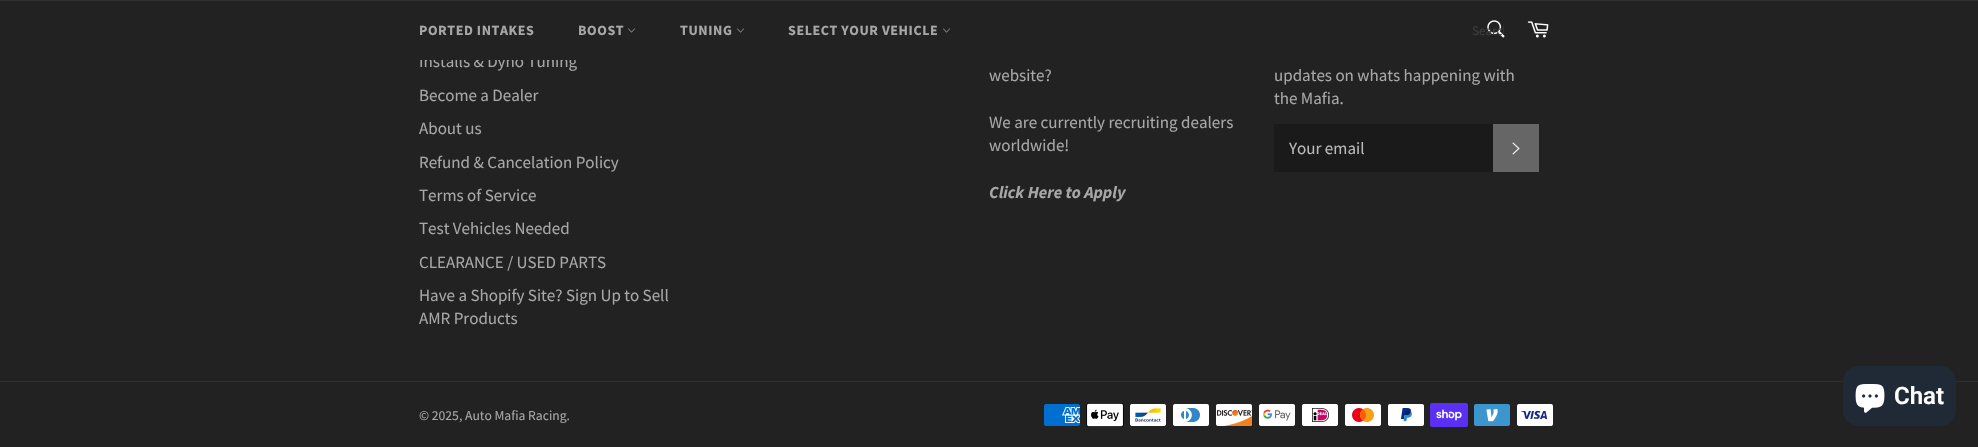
void draw(SkCanvas* canvas) {
    SkPaint paint;
    paint.setAntiAlias(true);
    auto face = [&](const char* family, int weight, float size, bool italic = false) {
        SkFontStyle style(weight, SkFontStyle::kNormal_Width,
            italic ? SkFontStyle::kItalic_Slant : SkFontStyle::kUpright_Slant);
        SkFont result(fontMgr->matchFamilyStyle(family, style), size);
        result.setSubpixel(true);
        return result;
    };
    auto write = [&](const char* s, float x, float y, const SkFont& font, SkColor color) {
        SkPaint ink(SkColor4f::FromColor(color));
        ink.setAntiAlias(true);
        canvas->drawString(s, x, y, font, ink);
    };
    auto writeSpaced = [&](const char* s, float x, float y, const SkFont& font, const SkPaint& ink, float letter, float word) {
        std::vector<SkGlyphID> glyphs(font.countText(s, strlen(s), SkTextEncoding::kUTF8));
        std::vector<float> xs(glyphs.size());
        font.textToGlyphs(s, strlen(s), SkTextEncoding::kUTF8, glyphs);
        font.getXPos(glyphs, xs, x);
        float extra = 0;
        for (size_t i = 0; i < glyphs.size(); i++) {
            xs[i] += extra;
            extra += letter + word * (glyphs[i] == font.unicharToGlyph(' '));
        }
        canvas->drawTextBlob(SkTextBlob::MakeFromPosHGlyphs(glyphs, xs, y, font), 0, 0, ink);
    };
    auto block = [&](float x, float y, float w, float h, SkColor color) {
        SkPaint ink(SkColor4f::FromColor(color));
        ink.setAntiAlias(true);
        canvas->drawRect(SkRect::MakeXYWH(x, y, w, h), ink);
    };
    auto card = [&](float x, float y, float w, float h, float radius, SkColor color) {
        SkPaint ink(SkColor4f::FromColor(color));
        ink.setAntiAlias(true);
        canvas->drawRoundRect(SkRect::MakeXYWH(x, y, w, h), radius, radius, ink);
    };
    auto paste = [&](const char* path, float x, float y, float w, float h) {
        auto image = SkImages::DeferredFromEncodedData(SkData::MakeFromFileName(path));
        canvas->drawImageRect(image, SkRect::MakeXYWH(x, y, w, h), SkSamplingOptions());
    };
    canvas->clear(SkColorSetRGB(34, 34, 34));
    auto kFont1 = face("Source Sans Pro", 400, 17);
    write("Installs & Dyno Tuning", 419, 67, kFont1, SkColorSetRGB(167, 167, 167));
    block(420, 54, 157, 6, SkColorSetRGB(34, 34, 34));
    block(0, 0, 1978, 1, SkColorSetRGB(47, 47, 47));
    auto kFont2 = face("Source Sans Pro", 700, 14);
    paint.setColor(SkColorSetRGB(167, 167, 167));
    writeSpaced("PORTED INTAKES", 419, 35, kFont2, paint, 0.6f, 0);
    writeSpaced("BOOST", 578, 35, kFont2, paint, 0.6f, 0);
    paste("pic1.png", 628, 28, 7, 5);
    writeSpaced("TUNING", 680, 35, kFont2, paint, 0.6f, 0);
    paste("pic1.png", 737, 28, 7, 5);
    writeSpaced("SELECT YOUR VEHICLE", 788, 35, kFont2, paint, 0.6f, 0);
    paste("pic1.png", 943, 28, 7, 5);
    paste("pic2.png", 1487, 20, 18, 18);
    canvas->save();
    canvas->clipRect(SkRect::MakeXYWH(1472, 22, 32, 17));
    auto kFont3 = face("Source Sans Pro", 400, 13);
    write("Search", 1472, 35, kFont3, SkColorSetRGB(62, 62, 62));
    canvas->restore();
    paste("pic3.png", 1527, 21, 22, 17);
    write("Become a Dealer", 419, 101, kFont1, SkColorSetRGB(167, 167, 167));
    write("About us", 419, 134, kFont1, SkColorSetRGB(167, 167, 167));
    write("Refund & Cancelation Policy", 419, 168, kFont1, SkColorSetRGB(167, 167, 167));
    write("Terms of Service", 419, 201, kFont1, SkColorSetRGB(167, 167, 167));
    write("Test Vehicles Needed", 419, 234, kFont1, SkColorSetRGB(167, 167, 167));
    write("CLEARANCE / USED PARTS", 419, 268, kFont1, SkColorSetRGB(167, 167, 167));
    write("Have a Shopify Site? Sign Up to Sell", 419, 301, kFont1, SkColorSetRGB(167, 167, 167));
    write("AMR Products", 419, 324, kFont1, SkColorSetRGB(167, 167, 167));
    write("website?", 989, 81, kFont1, SkColorSetRGB(167, 167, 167));
    write("We are currently recruiting dealers", 989, 128, kFont1, SkColorSetRGB(167, 167, 167));
    write("worldwide!", 989, 151, kFont1, SkColorSetRGB(167, 167, 167));
    auto kFont4 = face("Source Sans Pro", 700, 17, true);
    write("Click Here to Apply", 989, 198, kFont4, SkColorSetRGB(167, 167, 167));
    write("updates on whats happening with", 1274, 81, kFont1, SkColorSetRGB(167, 167, 167));
    write("the Mafia.", 1274, 104, kFont1, SkColorSetRGB(167, 167, 167));
    block(1274, 124, 219, 48, SkColorSetRGB(26, 26, 26));
    write("Your email", 1289, 154, kFont1, SkColorSetRGB(186, 186, 186));
    block(1493, 124, 46, 48, SkColorSetRGB(102, 102, 102));
    paste("pic4.png", 1512, 142, 8, 13);
    block(0, 381, 1978, 1, SkColorSetRGB(47, 47, 47));
    auto kFont5 = face("Source Sans Pro", 400, 13.6f);
    write("© 2025, Auto Mafia Racing.", 419, 420, kFont5, SkColorSetRGB(167, 167, 167));
    paste("pic5.png", 1044, 404, 36, 22);
    paste("pic6.png", 1086, 403, 38, 24);
    paste("pic7.png", 1130, 404, 36, 22);
    paste("pic8.png", 1173, 404, 36, 22);
    paste("pic9.png", 1216, 404, 36, 22);
    paste("pic10.png", 1259, 404, 36, 22);
    paste("pic11.png", 1302, 404, 36, 22);
    paste("pic12.png", 1345, 404, 36, 22);
    paste("pic13.png", 1388, 404, 36, 22);
    paste("pic14.png", 1430, 403, 38, 24);
    paste("pic15.png", 1474, 404, 36, 22);
    paste("pic16.png", 1517, 404, 36, 22);
    card(1843, 366, 113, 60, 16, SkColorSetRGB(32, 42, 54));
    paste("pic17.png", 1855, 384, 30, 29);
    auto kFont6 = face("Roboto", 600, 24);
    write("Chat", 1894, 404, kFont6, SK_ColorWHITE);
}
